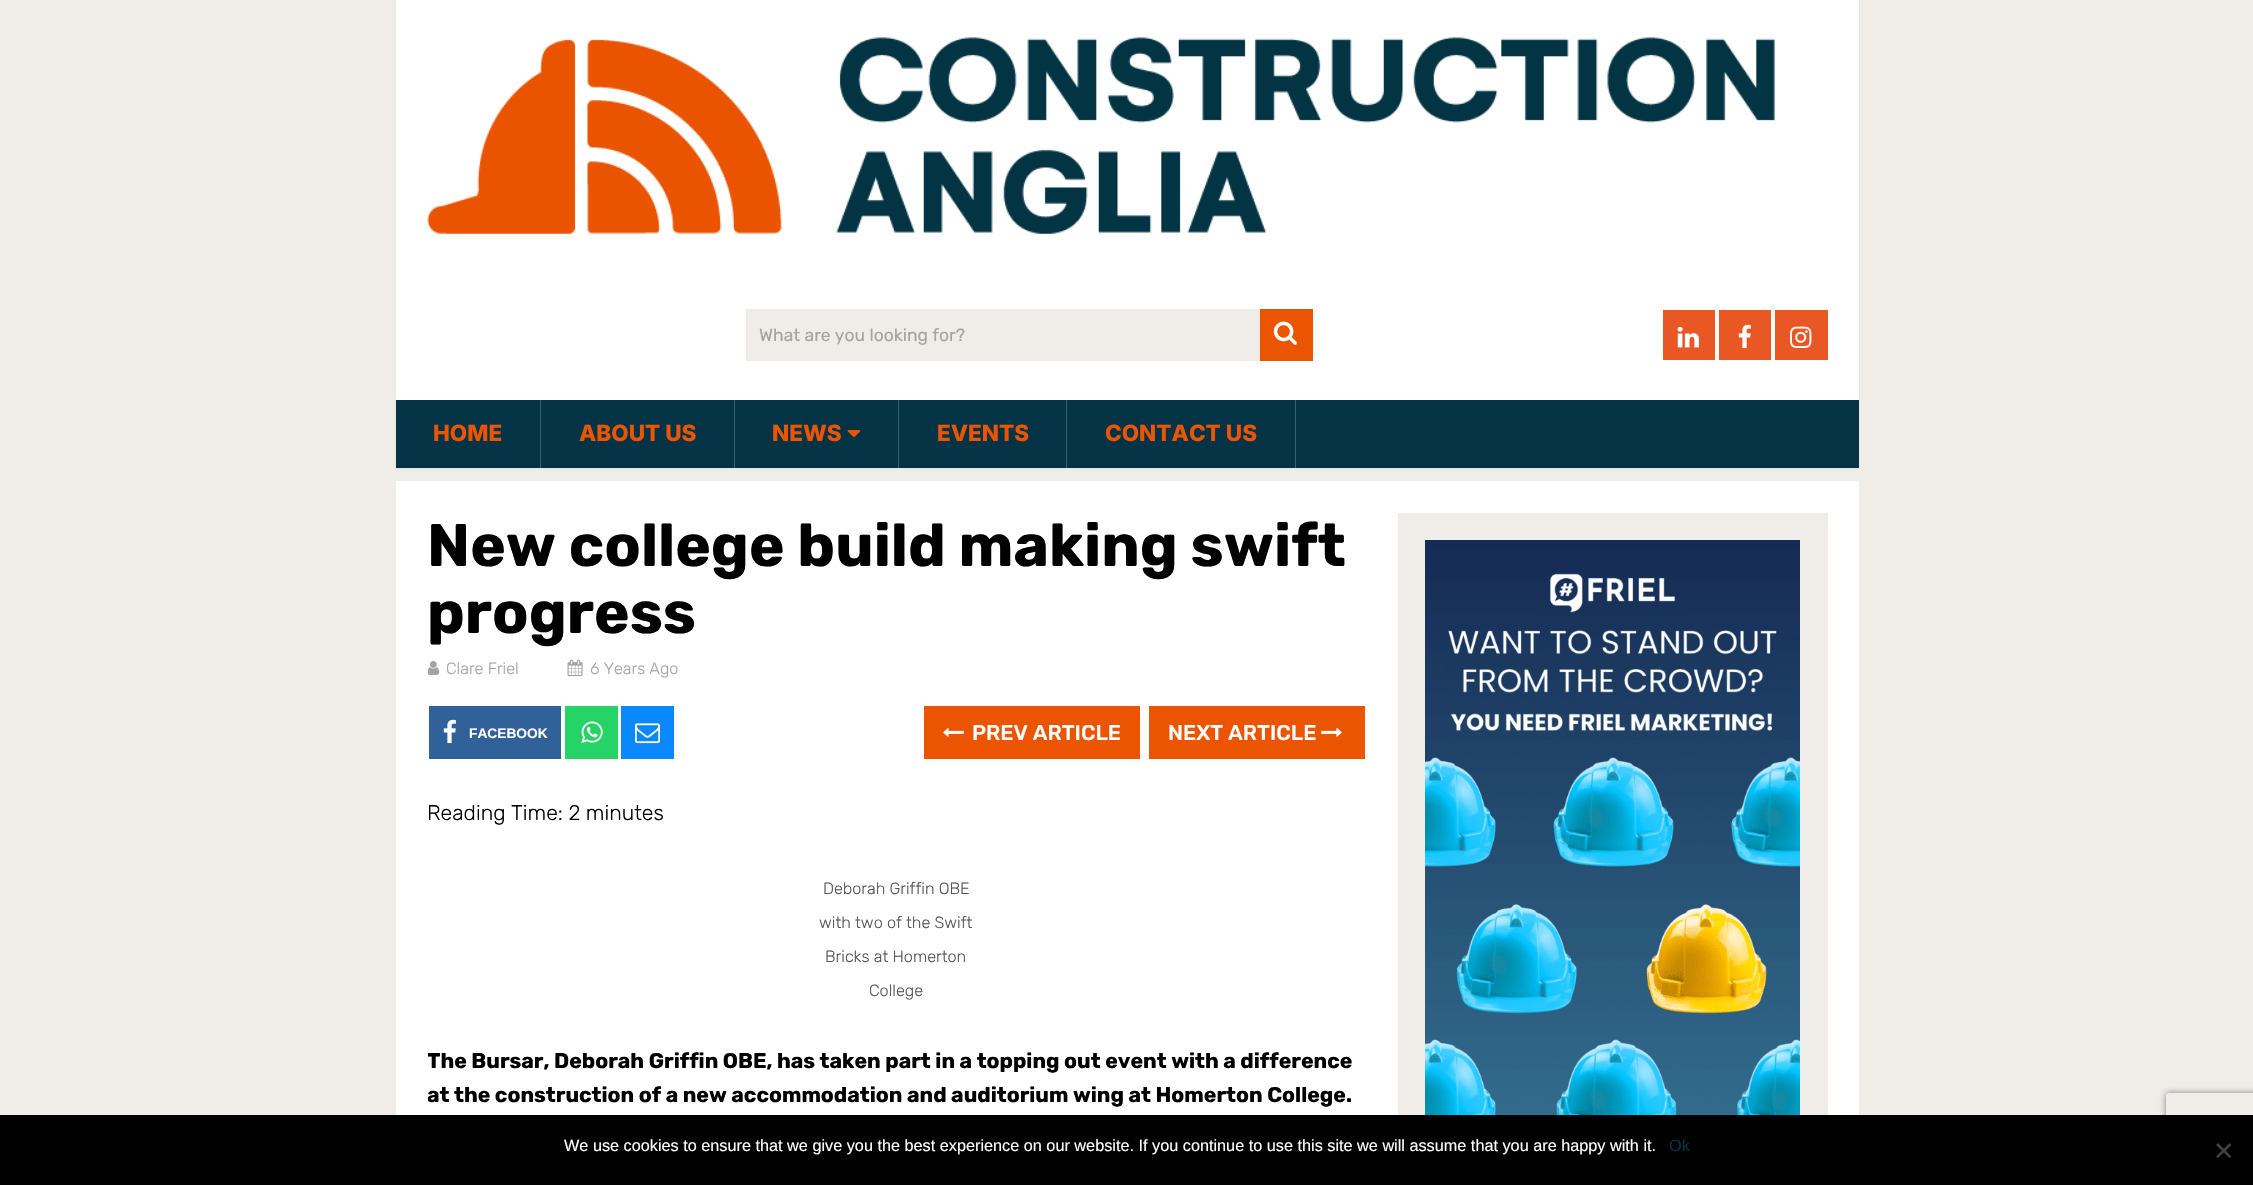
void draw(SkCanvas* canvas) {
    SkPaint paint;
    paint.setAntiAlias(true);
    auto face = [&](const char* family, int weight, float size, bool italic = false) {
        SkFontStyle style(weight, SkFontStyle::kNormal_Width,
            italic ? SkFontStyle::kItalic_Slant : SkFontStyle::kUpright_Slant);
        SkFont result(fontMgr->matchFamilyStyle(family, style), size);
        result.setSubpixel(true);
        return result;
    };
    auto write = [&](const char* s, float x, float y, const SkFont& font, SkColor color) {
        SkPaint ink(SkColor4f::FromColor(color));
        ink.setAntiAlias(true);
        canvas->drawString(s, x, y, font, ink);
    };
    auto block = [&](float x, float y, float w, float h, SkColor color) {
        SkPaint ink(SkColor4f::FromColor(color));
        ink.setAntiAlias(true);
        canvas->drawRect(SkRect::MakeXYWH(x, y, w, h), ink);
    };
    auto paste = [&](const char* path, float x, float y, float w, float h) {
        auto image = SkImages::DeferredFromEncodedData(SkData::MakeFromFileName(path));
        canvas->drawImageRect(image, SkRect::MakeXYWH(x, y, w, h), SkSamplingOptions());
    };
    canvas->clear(SkColorSetRGB(240, 237, 233));
    paint.setColor(SkColorSetARGB(13, 0, 0, 0));
    paint.setMaskFilter(SkMaskFilter::MakeBlur(kNormal_SkBlurStyle, 1));
    canvas->drawRect(SkRect::MakeXYWH(396, 1, 1463, 468), paint);
    paint.setMaskFilter(nullptr);
    block(396, 0, 1463, 400, SK_ColorWHITE);
    paste("pic1.png", 427, 37, 1348, 197);
    block(747, 310, 513, 50, SkColorSetRGB(240, 237, 233));
    paint.setStyle(SkPaint::kStroke_Style);
    paint.setStrokeWidth(1);
    paint.setColor(SkColorSetRGB(239, 235, 231));
    canvas->drawRect(SkRect::MakeXYWH(746.5f, 309.5f, 566, 51), paint);
    auto kFont1 = face("Rubik", 400, 17.5f);
    write("What are you looking for?", 759, 341, kFont1, SkColorSetRGB(164, 164, 164));
    block(1260, 309, 53, 52, SkColorSetRGB(235, 84, 0));
    paste("pic2.png", 1273, 321, 24, 24);
    block(1663, 310, 52, 50, SkColorSetRGB(232, 87, 36));
    paste("pic3.png", 1677, 326, 22, 22);
    block(1719, 310, 52, 50, SkColorSetRGB(232, 87, 36));
    paste("pic4.png", 1738, 324, 13, 25);
    block(1775, 310, 53, 50, SkColorSetRGB(232, 87, 36));
    paste("pic5.png", 1790, 326, 22, 22);
    block(396, 400, 1463, 68, SkColorSetRGB(3, 51, 69));
    block(540, 400, 1, 68, SkColorSetRGB(58, 96, 110));
    auto kFont2 = face("Inter", 800, 22.5f);
    write("HOME", 433, 441, kFont2, SkColorSetRGB(235, 84, 0));
    block(734, 400, 1, 68, SkColorSetRGB(58, 96, 110));
    write("ABOUT US", 579, 441, kFont2, SkColorSetRGB(235, 84, 0));
    block(898, 400, 1, 68, SkColorSetRGB(58, 96, 110));
    write("NEWS", 772, 441, kFont2, SkColorSetRGB(235, 84, 0));
    paste("pic6.png", 847, 430, 14, 8);
    block(1066, 400, 1, 68, SkColorSetRGB(58, 96, 110));
    write("EVENTS", 937, 441, kFont2, SkColorSetRGB(235, 84, 0));
    block(1295, 400, 1, 68, SkColorSetRGB(58, 96, 110));
    write("CONTACT US", 1105, 441, kFont2, SkColorSetRGB(235, 84, 0));
    block(396, 481, 1463, 634, SK_ColorWHITE);
    auto kFont3 = face("Rubik", 700, 60);
    write("New college build making swift", 427, 566, kFont3, SK_ColorBLACK);
    write("progress", 427, 633, kFont3, SK_ColorBLACK);
    paste("pic7.png", 428, 661, 12, 14);
    auto kFont4 = face("Rubik", 300, 16.25f);
    write("Clare Friel", 446, 674, kFont4, SkColorSetRGB(164, 164, 164));
    paste("pic8.png", 567, 659, 16, 18);
    write("6 Years Ago", 590, 674, kFont4, SkColorSetRGB(164, 164, 164));
    block(429, 706, 132, 53, SkColorSetRGB(48, 97, 153));
    paste("pic9.png", 443, 719, 13, 25);
    auto kFont5 = face("Liberation Sans", 700, 13.75f);
    write("FACEBOOK", 469, 738, kFont5, SK_ColorWHITE);
    block(565, 706, 53, 53, SkColorSetRGB(37, 211, 102));
    paste("pic10.png", 581, 721, 22, 22);
    block(621, 706, 53, 53, SkColorSetRGB(10, 136, 255));
    paste("pic11.png", 635, 723, 25, 21);
    block(924, 706, 216, 53, SkColorSetRGB(235, 84, 0));
    paste("pic12.png", 943, 727, 21, 10);
    auto kFont6 = face("Rubik", 500, 21.25f);
    write("PREV ARTICLE", 972, 740, kFont6, SK_ColorWHITE);
    block(1149, 706, 216, 53, SkColorSetRGB(235, 84, 0));
    write("NEXT ARTICLE", 1168, 740, kFont6, SK_ColorWHITE);
    paste("pic13.png", 1321, 727, 21, 10);
    auto kFont7 = face("Rubik", 300, 21.25f);
    write("Reading Time: 2 minutes", 427, 820, kFont7, SK_ColorBLACK);
    write("Deborah Griffin OBE", 823, 894, kFont4, SkColorSetRGB(85, 85, 85));
    write("with two of the Swift", 819, 928, kFont4, SkColorSetRGB(85, 85, 85));
    write("Bricks at Homerton", 825, 962, kFont4, SkColorSetRGB(85, 85, 85));
    write("College", 869, 996, kFont4, SkColorSetRGB(85, 85, 85));
    canvas->save();
    canvas->clipRect(SkRect::MakeXYWH(428, 513, 937, 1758));
    auto kFont8 = face("Rubik", 700, 21.25f);
    write("The Bursar, Deborah Griffin OBE, has taken part in a topping out event with a difference", 427, 1068, kFont8, SK_ColorBLACK);
    write("at the construction of a new accommodation and auditorium wing at Homerton College.", 427, 1102, kFont8, SK_ColorBLACK);
    canvas->restore();
    block(1398, 513, 430, 602, SkColorSetRGB(240, 237, 233));
    paste("pic14.png", 1425, 540, 375, 575);
    canvas->save();
    canvas->clipPath(SkPathBuilder(SkPathFillType::kEvenOdd).moveTo(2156, 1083).lineTo(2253, 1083).lineTo(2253, 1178).lineTo(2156, 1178).close().moveTo(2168.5f, 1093).lineTo(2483.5f, 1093).cubicTo(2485, 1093, 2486, 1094, 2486, 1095.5f).lineTo(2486, 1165.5f).cubicTo(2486, 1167, 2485, 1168, 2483.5f, 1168).lineTo(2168.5f, 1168).cubicTo(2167, 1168, 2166, 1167, 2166, 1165.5f).lineTo(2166, 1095.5f).cubicTo(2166, 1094, 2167, 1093, 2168.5f, 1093).close().detach(), true);
    paint.setStyle(SkPaint::kFill_Style);
    paint.setColor(SkColorSetRGB(128, 128, 128));
    paint.setMaskFilter(SkMaskFilter::MakeBlur(kNormal_SkBlurStyle, 3));
    canvas->drawRoundRect(SkRect::MakeXYWH(2166, 1093, 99, 75), 2.5f, 2.5f, paint);
    paint.setMaskFilter(nullptr);
    canvas->restore();
    block(0, 1115, 2253, 70, SK_ColorBLACK);
    auto kFont9 = face("Liberation Sans", 400, 16.25f);
    write("We use cookies to ensure that we give you the best experience on our website. If you continue to use this site we will assume that you are happy with it.", 564, 1151, kFont9, SK_ColorWHITE);
    write("Ok", 1669, 1151, kFont9, SkColorSetRGB(3, 51, 69));
    paint.setColor(SkColorSetRGB(64, 64, 64));
    canvas->drawPath(SkPathBuilder().moveTo(2229.5f, 1143).lineTo(2231.5f, 1145).lineTo(2218, 1158).lineTo(2216, 1156.5f).close().detach(), paint);
    canvas->drawPath(SkPathBuilder().moveTo(2216, 1145).lineTo(2218, 1143).lineTo(2231.5f, 1156.5f).lineTo(2229.5f, 1158).close().detach(), paint);
}
